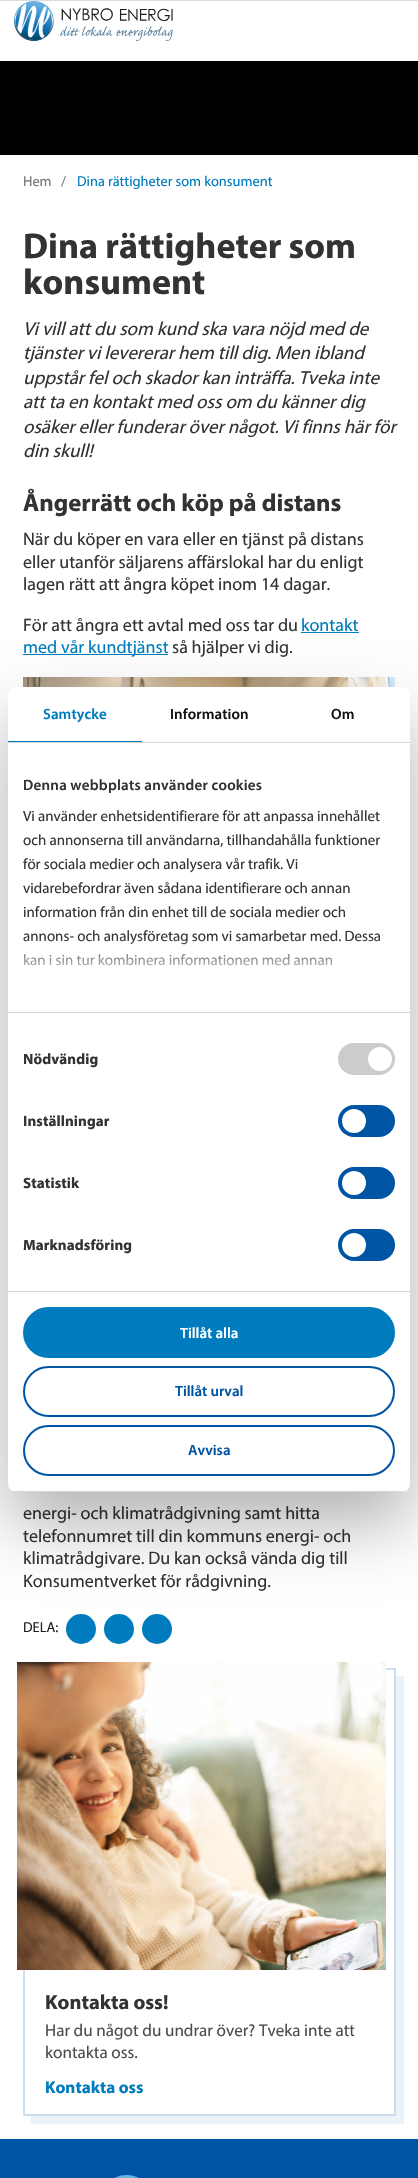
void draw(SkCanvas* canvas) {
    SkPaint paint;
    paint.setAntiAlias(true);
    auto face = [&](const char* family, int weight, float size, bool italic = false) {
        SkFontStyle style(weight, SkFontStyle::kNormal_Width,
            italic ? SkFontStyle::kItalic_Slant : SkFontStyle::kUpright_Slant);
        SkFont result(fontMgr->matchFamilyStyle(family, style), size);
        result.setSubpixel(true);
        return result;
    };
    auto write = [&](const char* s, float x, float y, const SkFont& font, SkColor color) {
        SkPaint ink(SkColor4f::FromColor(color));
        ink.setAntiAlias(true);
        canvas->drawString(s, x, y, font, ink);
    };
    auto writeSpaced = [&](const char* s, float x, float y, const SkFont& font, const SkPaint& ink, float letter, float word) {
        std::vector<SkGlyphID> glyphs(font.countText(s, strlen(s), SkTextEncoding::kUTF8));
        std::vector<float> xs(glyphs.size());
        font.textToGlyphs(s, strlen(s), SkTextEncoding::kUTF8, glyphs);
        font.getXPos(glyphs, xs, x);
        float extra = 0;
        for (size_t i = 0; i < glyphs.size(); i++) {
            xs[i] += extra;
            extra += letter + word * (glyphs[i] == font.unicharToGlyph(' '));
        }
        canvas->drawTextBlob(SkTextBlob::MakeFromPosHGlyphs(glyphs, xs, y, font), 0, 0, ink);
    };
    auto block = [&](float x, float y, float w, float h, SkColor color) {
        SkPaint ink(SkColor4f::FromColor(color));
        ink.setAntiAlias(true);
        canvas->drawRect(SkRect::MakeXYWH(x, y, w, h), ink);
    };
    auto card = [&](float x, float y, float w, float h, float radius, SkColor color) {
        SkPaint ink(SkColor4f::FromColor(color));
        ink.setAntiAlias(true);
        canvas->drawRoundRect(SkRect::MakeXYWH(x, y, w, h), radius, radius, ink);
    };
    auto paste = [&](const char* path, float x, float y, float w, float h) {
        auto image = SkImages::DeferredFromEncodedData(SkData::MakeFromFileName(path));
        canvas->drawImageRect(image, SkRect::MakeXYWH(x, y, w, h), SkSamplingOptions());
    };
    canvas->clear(SK_ColorWHITE);
    block(0, 61, 418, 94, SK_ColorBLACK);
    canvas->save();
    canvas->clipRect(SkRect::MakeXYWH(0, 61, 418, 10));
    paint.setColor(SkColorSetARGB(38, 35, 31, 32));
    paint.setMaskFilter(SkMaskFilter::MakeBlur(kNormal_SkBlurStyle, 16));
    canvas->drawRect(SkRect::MakeXYWH(0, -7, 418, 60), paint);
    paint.setMaskFilter(nullptr);
    canvas->restore();
    paste("pic1.png", 14, 1, 159, 40);
    block(0, 0, 418, 1, SkColorSetRGB(221, 221, 221));
    auto kFont1 = face("Myriad", 400, 14.4f);
    write("Hem", 23, 186, kFont1, SkColorSetRGB(117, 117, 117));
    write("/", 61, 186, kFont1, SkColorSetRGB(117, 117, 117));
    write("Dina rättigheter som konsument", 77, 186, kFont1, SkColorSetRGB(0, 124, 190));
    auto kFont2 = face("Myriad", 700, 36);
    write("Dina rättigheter som", 23, 258, kFont2, SkColorSetRGB(51, 51, 51));
    write("konsument", 23, 294, kFont2, SkColorSetRGB(51, 51, 51));
    auto kFont3 = face("Myriad", 400, 18.9f, true);
    write("Vi vill att du som kund ska vara nöjd med de", 23, 335, kFont3, SkColorSetRGB(51, 51, 51));
    write("tjänster vi levererar hem till dig. Men ibland", 23, 359, kFont3, SkColorSetRGB(51, 51, 51));
    write("uppstår fel och skador kan inträffa. Tveka inte", 23, 384, kFont3, SkColorSetRGB(51, 51, 51));
    write("att ta en kontakt med oss om du känner dig", 23, 408, kFont3, SkColorSetRGB(51, 51, 51));
    write("osäker eller funderar över något. Vi finns här för", 23, 433, kFont3, SkColorSetRGB(51, 51, 51));
    write("din skull!", 23, 457, kFont3, SkColorSetRGB(51, 51, 51));
    auto kFont4 = face("Myriad", 700, 24.75f);
    write("Ångerrätt och köp på distans", 23, 511, kFont4, SkColorSetRGB(51, 51, 51));
    auto kFont5 = face("Myriad", 400, 18);
    write("När du köper en vara eller en tjänst på distans", 23, 545, kFont5, SkColorSetRGB(51, 51, 51));
    write("eller utanför säljarens affärslokal har du enligt", 23, 568, kFont5, SkColorSetRGB(51, 51, 51));
    write("lagen rätt att ångra köpet inom 14 dagar.", 23, 590, kFont5, SkColorSetRGB(51, 51, 51));
    write("För att ångra ett avtal med oss tar du", 23, 631, kFont5, SkColorSetRGB(51, 51, 51));
    write("kontakt", 301, 631, kFont5, SkColorSetRGB(0, 124, 190));
    block(301, 632, 58, 1, SkColorSetRGB(0, 124, 190));
    block(23, 654, 145, 1, SkColorSetRGB(0, 124, 190));
    write("med vår kundtjänst", 23, 653, kFont5, SkColorSetRGB(0, 124, 190));
    write("så hjälper vi dig.", 172, 653, kFont5, SkColorSetRGB(51, 51, 51));
    paste("pic2.png", 23, 677, 372, 10);
    write("energi- och klimatrådgivning samt hitta", 23, 1519, kFont5, SkColorSetRGB(51, 51, 51));
    write("telefonnumret till din kommuns energi- och", 23, 1542, kFont5, SkColorSetRGB(51, 51, 51));
    write("klimatrådgivare. Du kan också vända dig till", 23, 1564, kFont5, SkColorSetRGB(51, 51, 51));
    write("Konsumentverket för rådgivning.", 23, 1587, kFont5, SkColorSetRGB(51, 51, 51));
    write("DELA:", 23, 1632, kFont1, SkColorSetRGB(35, 31, 32));
    paint.setColor(SkColorSetRGB(0, 124, 190));
    canvas->drawCircle(81, 1629, 15, paint);
    canvas->drawCircle(119, 1629, 15, paint);
    canvas->drawCircle(157, 1629, 15, paint);
    paint.setColor(SkColorSetRGB(233, 243, 249));
    canvas->drawPath(SkPathBuilder().moveTo(31, 2116).lineTo(31, 2124).lineTo(404, 2124).lineTo(404, 1676).lineTo(396, 1676).lineTo(396, 2116).close().detach(), paint);
    paint.setStyle(SkPaint::kStroke_Style);
    paint.setStrokeWidth(2);
    paint.setColor(SkColorSetRGB(204, 221, 237));
    canvas->drawRect(SkRect::MakeXYWH(24, 1669, 371, 446), paint);
    paste("pic3.png", 17, 1662, 369, 308);
    auto kFont6 = face("Myriad", 700, 20.5f);
    write("Kontakta oss!", 45, 2009, kFont6, SkColorSetRGB(51, 51, 51));
    auto kFont7 = face("Myriad", 400, 17.1f);
    write("Har du något du undrar över? Tveka inte att", 45, 2036, kFont7, SkColorSetRGB(77, 77, 77));
    write("kontakta oss.", 45, 2058, kFont7, SkColorSetRGB(77, 77, 77));
    auto kFont8 = face("Myriad", 700, 17.1f);
    write("Kontakta oss", 45, 2093, kFont8, SkColorSetRGB(0, 124, 190));
    block(0, 2139, 418, 39, SkColorSetRGB(0, 84, 164));
    paste("pic4.png", 114, 2175, 25, 3);
    paint.setStyle(SkPaint::kFill_Style);
    paint.setColor(SkColorSetARGB(77, 0, 0, 0));
    paint.setMaskFilter(SkMaskFilter::MakeBlur(kNormal_SkBlurStyle, 34));
    canvas->drawRoundRect(SkRect::MakeXYWH(8, 719, 402, 805), 8, 8, paint);
    paint.setMaskFilter(nullptr);
    card(8, 687, 402, 805, 8, SK_ColorWHITE);
    block(8, 742, 402, 1, SkColorSetRGB(214, 214, 214));
    block(8, 741, 134, 1, SkColorSetRGB(0, 124, 190));
    auto kFont9 = face("Myriad", 600, 15);
    paint.setColor(SkColorSetRGB(0, 124, 190));
    writeSpaced("Samtycke", 43, 719, kFont9, paint, 0.1f, 0);
    paint.setColor(SkColorSetRGB(20, 20, 20));
    writeSpaced("Information", 170, 719, kFont9, paint, 0.1f, 0);
    writeSpaced("Om", 331, 719, kFont9, paint, 0.1f, 0);
    block(8, 1012, 402, 1, SkColorSetRGB(214, 214, 214));
    paint.setColor(SkColorSetRGB(51, 51, 51));
    writeSpaced("Denna webbplats använder cookies", 23, 790, kFont9, paint, 0.25f, 0);
    auto kFont10 = face("Myriad", 400, 15);
    write("Vi använder enhetsidentifierare för att anpassa innehållet", 23, 821, kFont10, SkColorSetRGB(51, 51, 51));
    write("och annonserna till användarna, tillhandahålla funktioner", 23, 845, kFont10, SkColorSetRGB(51, 51, 51));
    write("för sociala medier och analysera vår trafik. Vi", 23, 869, kFont10, SkColorSetRGB(51, 51, 51));
    write("vidarebefordrar även sådana identifierare och annan", 23, 893, kFont10, SkColorSetRGB(51, 51, 51));
    write("information från din enhet till de sociala medier och", 23, 917, kFont10, SkColorSetRGB(51, 51, 51));
    write("annons- och analysföretag som vi samarbetar med. Dessa", 23, 941, kFont10, SkColorSetRGB(51, 51, 51));
    write("kan i sin tur kombinera informationen med annan", 23, 965, kFont10, SkColorSetRGB(51, 51, 51));
    {
        const SkColor colors[] = {SK_ColorWHITE, SkColorSetARGB(204, 255, 255, 255), SkColorSetARGB(0, 255, 255, 255)};
        const float stops[] = {0, 0.5f, 1};
        const SkPoint ends[] = {{203, 1012}, {203, 937}};
        paint.setShader(SkGradientShader::MakeLinear(ends, colors, stops, 3, SkTileMode::kClamp));
        paint.setAlpha(255);
    }
    canvas->drawRect(SkRect::MakeXYWH(23, 938, 357, 28), paint);
    block(8, 1291, 402, 1, SkColorSetRGB(214, 214, 214));
    auto kFont11 = face("Myriad", 700, 15);
    paint.setShader(nullptr);
    paint.setColor(SkColorSetRGB(51, 51, 51));
    writeSpaced("Nödvändig", 23, 1064, kFont11, paint, 0.1f, 0);
    card(338, 1043, 57, 32, 16, SkColorSetRGB(204, 204, 204));
    paint.setColor(SK_ColorWHITE);
    canvas->drawCircle(380, 1059, 12, paint);
    paint.setColor(SkColorSetRGB(51, 51, 51));
    writeSpaced("Inställningar", 23, 1126, kFont11, paint, 0.1f, 0);
    card(338, 1105, 57, 32, 16, SkColorSetRGB(0, 84, 164));
    paint.setColor(SK_ColorWHITE);
    canvas->drawCircle(354, 1121, 12, paint);
    paint.setColor(SkColorSetRGB(51, 51, 51));
    writeSpaced("Statistik", 23, 1188, kFont11, paint, 0.1f, 0);
    card(338, 1167, 57, 32, 16, SkColorSetRGB(0, 84, 164));
    paint.setColor(SK_ColorWHITE);
    canvas->drawCircle(354, 1183, 12, paint);
    paint.setColor(SkColorSetRGB(51, 51, 51));
    writeSpaced("Marknadsföring", 23, 1250, kFont11, paint, 0.1f, 0);
    card(338, 1229, 57, 32, 16, SkColorSetRGB(0, 84, 164));
    paint.setColor(SK_ColorWHITE);
    canvas->drawCircle(354, 1245, 12, paint);
    canvas->save();
    canvas->clipPath(SkPathBuilder().moveTo(16, 687).lineTo(402, 687).cubicTo(406.5f, 687, 410, 690.5f, 410, 695).lineTo(410, 1484).cubicTo(410, 1488.5f, 406.5f, 1492, 402, 1492).lineTo(16, 1492).cubicTo(11.5f, 1492, 8, 1488.5f, 8, 1484).lineTo(8, 695).cubicTo(8, 690.5f, 11.5f, 687, 16, 687).close().detach(), true);
    block(8, 1491, 402, 1, SkColorSetRGB(214, 214, 214));
    canvas->restore();
    paint.setColor(SkColorSetRGB(0, 124, 190));
    canvas->drawRoundRect(SkRect::MakeXYWH(24, 1308, 370, 49), 24.5f, 24.5f, paint);
    paint.setStyle(SkPaint::kStroke_Style);
    canvas->drawRoundRect(SkRect::MakeXYWH(24, 1308, 370, 49), 24.5f, 24.5f, paint);
    write("Tillåt alla", 180, 1338, kFont9, SK_ColorWHITE);
    paint.setColor(SkColorSetRGB(0, 84, 164));
    canvas->drawRoundRect(SkRect::MakeXYWH(24, 1367, 370, 49), 24.5f, 24.5f, paint);
    write("Tillåt urval", 175, 1396, kFont9, SkColorSetRGB(0, 84, 164));
    canvas->drawRoundRect(SkRect::MakeXYWH(24, 1426, 370, 49), 24.5f, 24.5f, paint);
    write("Avvisa", 188, 1455, kFont9, SkColorSetRGB(0, 84, 164));
}
